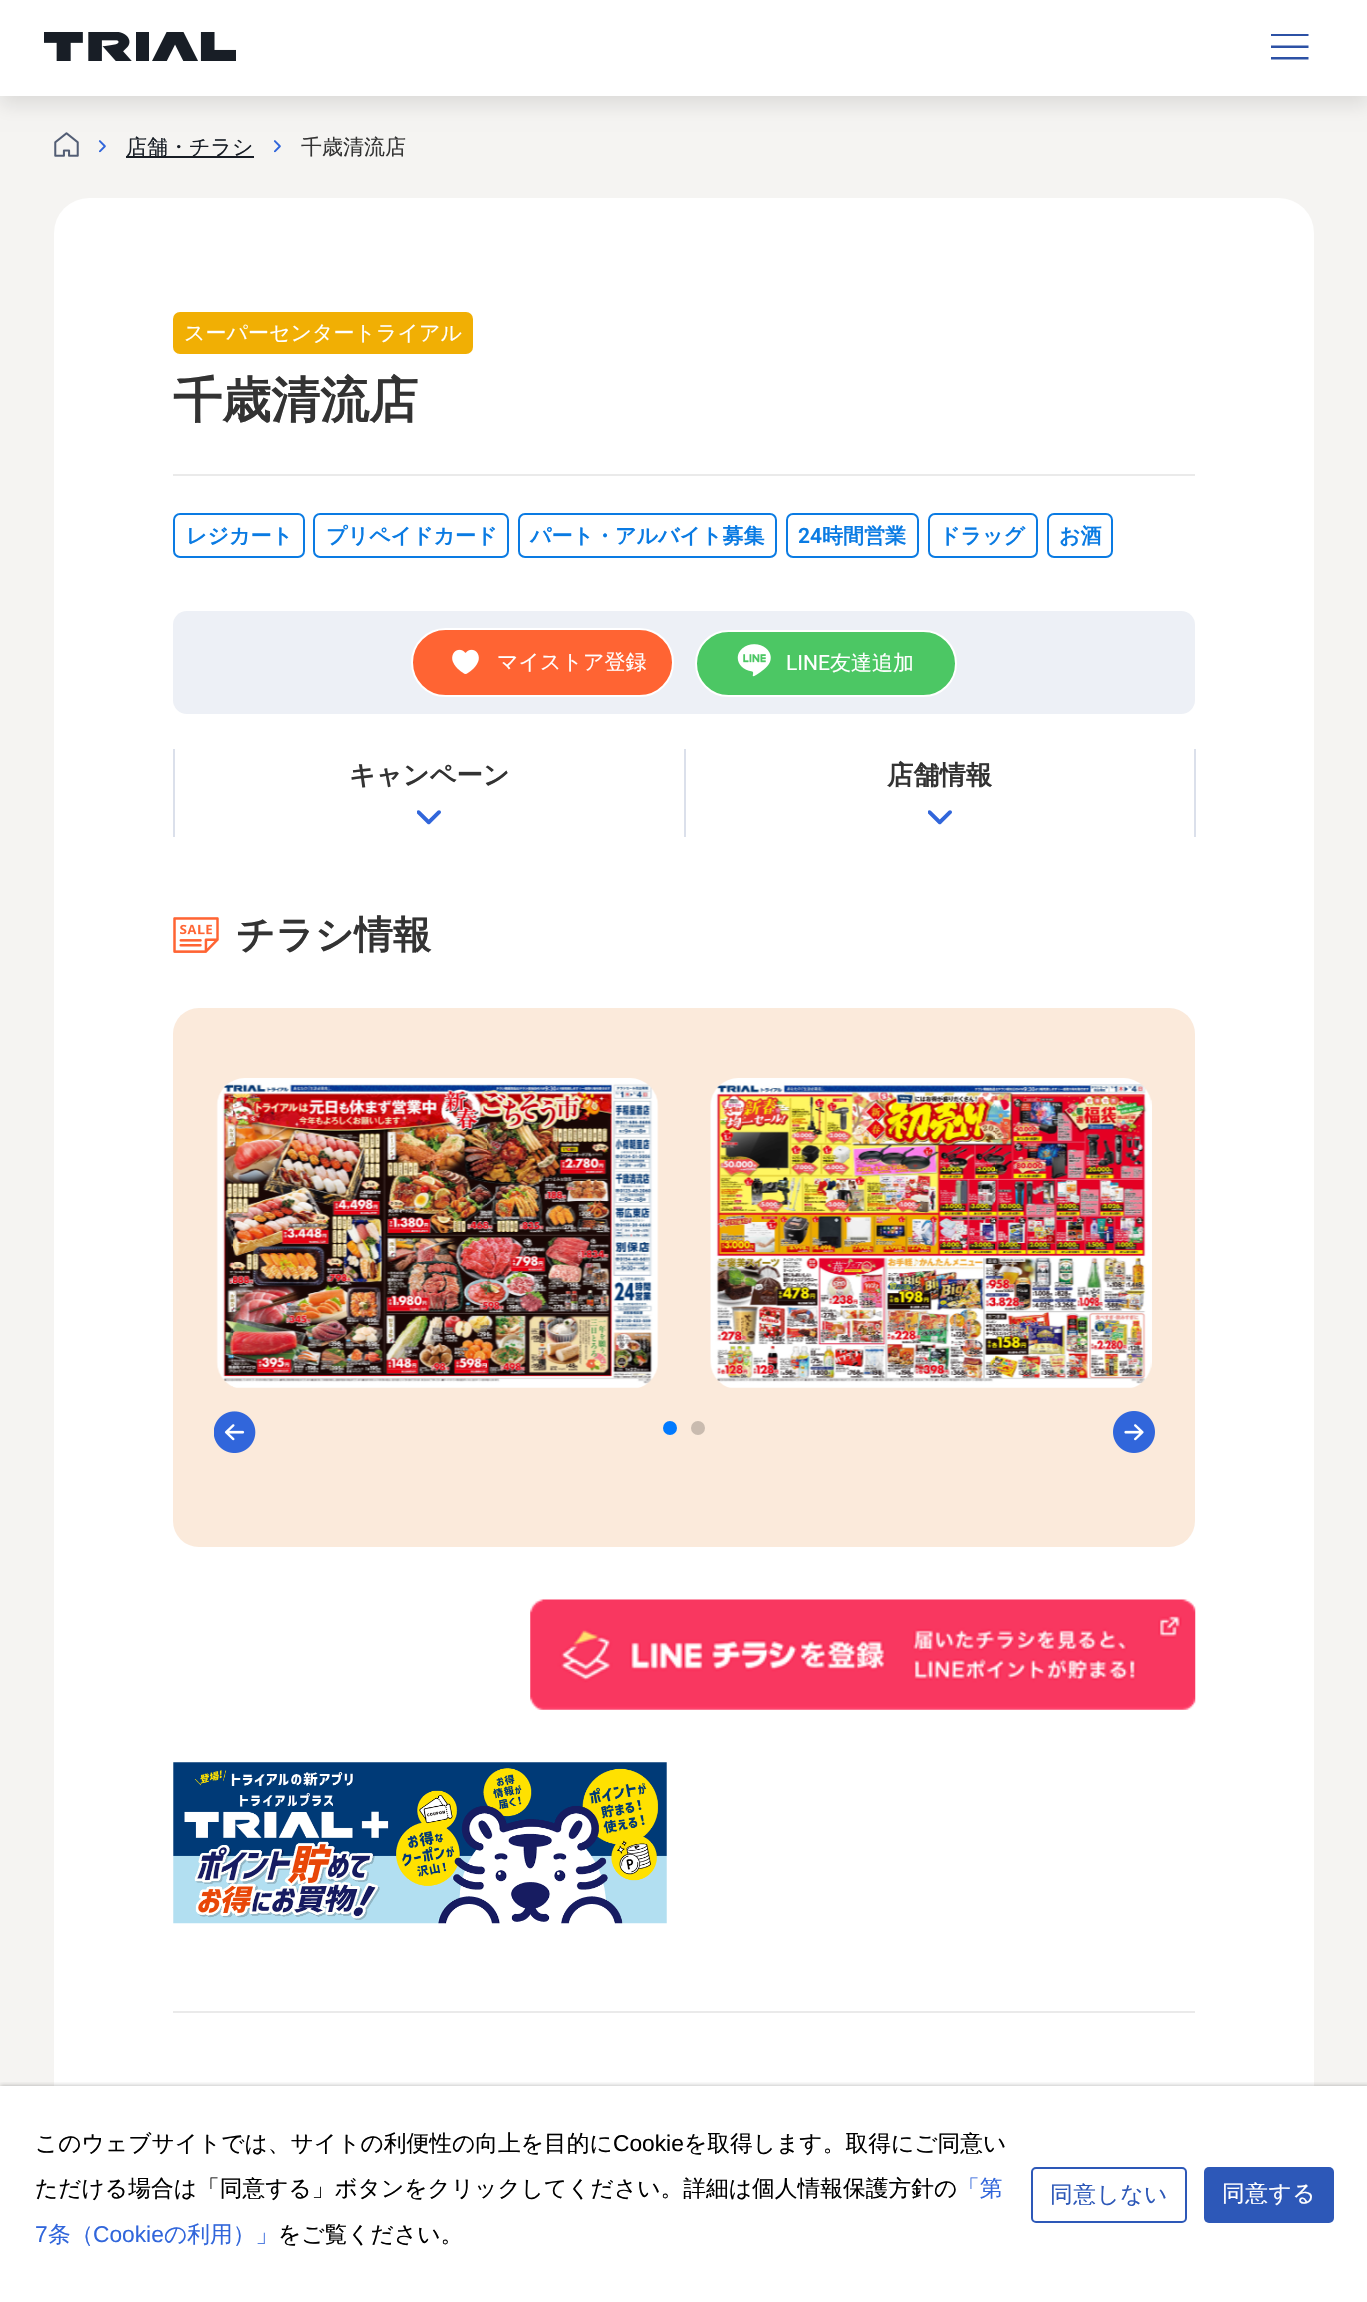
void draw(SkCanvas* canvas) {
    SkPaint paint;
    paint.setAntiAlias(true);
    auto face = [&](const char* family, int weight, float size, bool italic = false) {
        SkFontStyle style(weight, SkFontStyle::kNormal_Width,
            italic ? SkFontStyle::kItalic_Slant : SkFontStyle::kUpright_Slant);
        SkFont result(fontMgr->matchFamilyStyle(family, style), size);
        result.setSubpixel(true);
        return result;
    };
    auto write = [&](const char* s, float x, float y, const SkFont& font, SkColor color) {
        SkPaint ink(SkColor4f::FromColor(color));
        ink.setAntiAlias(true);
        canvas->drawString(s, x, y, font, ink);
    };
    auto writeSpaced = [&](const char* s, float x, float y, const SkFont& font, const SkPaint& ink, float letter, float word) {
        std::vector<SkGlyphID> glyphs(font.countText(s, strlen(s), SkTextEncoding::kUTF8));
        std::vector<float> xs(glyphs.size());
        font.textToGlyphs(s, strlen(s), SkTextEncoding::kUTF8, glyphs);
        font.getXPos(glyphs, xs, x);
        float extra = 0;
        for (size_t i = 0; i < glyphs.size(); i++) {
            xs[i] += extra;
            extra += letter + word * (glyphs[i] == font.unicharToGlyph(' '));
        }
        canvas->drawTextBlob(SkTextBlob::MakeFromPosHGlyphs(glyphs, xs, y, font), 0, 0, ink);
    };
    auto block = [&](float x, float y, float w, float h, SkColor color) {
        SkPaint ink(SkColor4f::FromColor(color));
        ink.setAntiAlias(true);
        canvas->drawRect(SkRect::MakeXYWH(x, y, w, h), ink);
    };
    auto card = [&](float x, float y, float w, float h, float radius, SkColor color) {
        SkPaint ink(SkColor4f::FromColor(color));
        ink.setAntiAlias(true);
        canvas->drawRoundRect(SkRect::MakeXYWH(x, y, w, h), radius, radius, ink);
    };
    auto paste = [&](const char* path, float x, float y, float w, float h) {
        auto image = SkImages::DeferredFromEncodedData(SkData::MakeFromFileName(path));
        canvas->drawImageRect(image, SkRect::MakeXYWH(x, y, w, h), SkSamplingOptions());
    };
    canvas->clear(SkColorSetRGB(245, 244, 242));
    paste("pic2.png", 54, 132, 25, 25);
    paint.setColor(SkColorSetARGB(26, 0, 0, 0));
    paint.setMaskFilter(SkMaskFilter::MakeBlur(kNormal_SkBlurStyle, 9));
    canvas->drawRect(SkRect::MakeXYWH(0, 9, 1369, 96), paint);
    paint.setMaskFilter(nullptr);
    block(0, 0, 1367, 96, SK_ColorWHITE);
    paste("pic1.png", 44, 32, 192, 29);
    paint.setColor(SkColorSetRGB(44, 81, 165));
    canvas->drawPath(SkPathBuilder().moveTo(1271, 34).lineTo(1308.5f, 34).lineTo(1308.5f, 36).lineTo(1271, 36).close().moveTo(1271, 57).lineTo(1308.5f, 57).lineTo(1308.5f, 59.5f).lineTo(1271, 59.5f).close().moveTo(1271, 45.5f).lineTo(1308.5f, 45.5f).lineTo(1308.5f, 48).lineTo(1271, 48).close().detach(), paint);
    paste("pic3.png", 98, 140, 8, 13);
    block(126, 156, 128, 2, SkColorSetRGB(24, 30, 38));
    auto kFont1 = face("WenQuanYi Zen Hei", 500, 21);
    write("店舗・チラシ", 126, 154, kFont1, SkColorSetRGB(24, 30, 38));
    paste("pic3.png", 273, 140, 8, 13);
    write("千歳清流店", 301, 154, kFont1, SkColorSetRGB(51, 51, 51));
    card(54, 198, 1260, 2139, 35, SK_ColorWHITE);
    card(173, 312, 300, 42, 7, SkColorSetRGB(241, 175, 4));
    write("スーパーセンタートライアル", 184, 340, kFont1, SK_ColorWHITE);
    auto kFont2 = face("WenQuanYi Zen Hei", 700, 49);
    write("千歳清流店", 173, 417, kFont2, SkColorSetRGB(51, 51, 51));
    block(173, 474, 1022, 2, SkColorSetRGB(234, 234, 234));
    paint.setStyle(SkPaint::kStroke_Style);
    paint.setStrokeWidth(2);
    paint.setColor(SkColorSetRGB(10, 123, 227));
    canvas->drawRoundRect(SkRect::MakeXYWH(174, 514, 130, 43), 6, 6, paint);
    auto kFont3 = face("WenQuanYi Zen Hei", 700, 21);
    write("レジカート", 186, 543, kFont3, SkColorSetRGB(10, 123, 227));
    canvas->drawRoundRect(SkRect::MakeXYWH(314, 514, 194, 43), 6, 6, paint);
    write("プリペイドカード", 326, 543, kFont3, SkColorSetRGB(10, 123, 227));
    canvas->drawRoundRect(SkRect::MakeXYWH(519, 514, 257, 43), 6, 6, paint);
    write("パート・アルバイト募集", 530, 543, kFont3, SkColorSetRGB(10, 123, 227));
    canvas->drawRoundRect(SkRect::MakeXYWH(787, 514, 131, 43), 6, 6, paint);
    auto kFont4 = face("Roboto", 600, 21);
    write("24", 798, 543, kFont4, SkColorSetRGB(10, 123, 227));
    write("時間営業", 822, 543, kFont3, SkColorSetRGB(10, 123, 227));
    canvas->drawRoundRect(SkRect::MakeXYWH(929, 514, 108, 43), 6, 6, paint);
    write("ドラッグ", 939, 543, kFont3, SkColorSetRGB(10, 123, 227));
    canvas->drawRoundRect(SkRect::MakeXYWH(1048, 514, 64, 43), 6, 6, paint);
    write("お酒", 1059, 543, kFont3, SkColorSetRGB(10, 123, 227));
    card(173, 611, 1022, 103, 14, SkColorSetRGB(237, 240, 246));
    paint.setStyle(SkPaint::kFill_Style);
    paint.setColor(SkColorSetRGB(255, 100, 51));
    canvas->drawRoundRect(SkRect::MakeXYWH(412, 629, 261, 67), 33.5f, 33.5f, paint);
    paint.setStyle(SkPaint::kStroke_Style);
    paint.setColor(SK_ColorWHITE);
    canvas->drawRoundRect(SkRect::MakeXYWH(412, 629, 261, 67), 33.5f, 33.5f, paint);
    paste("pic4.png", 452, 649, 27, 25);
    write("マイストア登録", 497, 669, kFont1, SK_ColorWHITE);
    paint.setStyle(SkPaint::kFill_Style);
    paint.setColor(SkColorSetRGB(76, 199, 100));
    canvas->drawRoundRect(SkRect::MakeXYWH(696, 631, 260, 65), 32.5f, 32.5f, paint);
    paint.setStyle(SkPaint::kStroke_Style);
    paint.setColor(SK_ColorWHITE);
    canvas->drawRoundRect(SkRect::MakeXYWH(696, 631, 260, 65), 32.5f, 32.5f, paint);
    paste("pic5.png", 737, 644, 34, 33);
    auto kFont5 = face("Roboto", 400, 21);
    write("LINE", 786, 670, kFont5, SK_ColorWHITE);
    write("友達追加", 830, 670, kFont1, SK_ColorWHITE);
    block(173, 749, 2, 88, SkColorSetRGB(219, 224, 235));
    auto kFont6 = face("WenQuanYi Zen Hei", 700, 26.25f);
    write("キャンペーン", 349, 784, kFont6, SkColorSetRGB(51, 51, 51));
    paste("pic6.png", 417, 810, 24, 15);
    block(684, 749, 2, 88, SkColorSetRGB(219, 224, 235));
    write("店舗情報", 887, 784, kFont6, SkColorSetRGB(51, 51, 51));
    paste("pic6.png", 928, 810, 24, 15);
    block(1194, 749, 2, 88, SkColorSetRGB(219, 224, 235));
    paste("pic7.png", 173, 917, 46, 36);
    auto kFont7 = face("WenQuanYi Zen Hei", 700, 38.5f);
    write("チラシ情報", 236, 948, kFont7, SkColorSetRGB(51, 51, 51));
    card(173, 1008, 1022, 539, 26, SkColorSetRGB(251, 234, 219));
    paste("pic8.png", 216, 1078, 443, 310);
    paste("pic9.png", 710, 1078, 442, 310);
    paste("pic10.png", 214, 1411, 42, 42);
    paint.setStyle(SkPaint::kFill_Style);
    paint.setColor(SkColorSetRGB(0, 122, 255));
    canvas->drawCircle(670, 1428, 7, paint);
    paint.setColor(SkColorSetRGB(201, 187, 175));
    canvas->drawCircle(698, 1428, 7, paint);
    paste("pic11.png", 1113, 1411, 42, 42);
    paste("pic12.png", 530, 1599, 666, 111);
    paste("pic13.png", 173, 1762, 494, 162);
    block(173, 2011, 1022, 2, SkColorSetRGB(234, 234, 234));
    block(0, 2086, 1367, 216, SK_ColorWHITE);
    canvas->save();
    canvas->clipRect(SkRect::MakeXYWH(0, 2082, 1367, 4));
    paint.setColor(SkColorSetARGB(77, 0, 0, 0));
    paint.setMaskFilter(SkMaskFilter::MakeBlur(kNormal_SkBlurStyle, 2.5f));
    canvas->drawRect(SkRect::MakeXYWH(0, 2086, 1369, 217), paint);
    paint.setMaskFilter(nullptr);
    canvas->restore();
    auto kFont8 = face("WenQuanYi Zen Hei", 500, 22.75f);
    write("このウェブサイトでは、サイトの利便性の向上を目的に", 35, 2151, kFont8, SK_ColorBLACK);
    auto kFont9 = face("Liberation Sans", 400, 22.75f);
    write("Cookie", 613, 2151, kFont9, SK_ColorBLACK);
    write("を取得します。取得にご同意い", 684, 2151, kFont8, SK_ColorBLACK);
    write("ただける場合は「同意する」ボタンをクリックしてください。詳細は個人情報保護方針の", 35, 2196, kFont8, SK_ColorBLACK);
    write("「第", 957, 2196, kFont8, SkColorSetRGB(49, 102, 219));
    write("7", 35, 2242, kFont9, SkColorSetRGB(49, 102, 219));
    write("条（", 48, 2242, kFont8, SkColorSetRGB(49, 102, 219));
    write("Cookie", 93, 2242, kFont9, SkColorSetRGB(49, 102, 219));
    write("の利用）」", 164, 2242, kFont8, SkColorSetRGB(49, 102, 219));
    write("をご覧ください。", 278, 2242, kFont8, SK_ColorBLACK);
    paint.setStyle(SkPaint::kStroke_Style);
    paint.setColor(SkColorSetRGB(45, 88, 184));
    canvas->drawRoundRect(SkRect::MakeXYWH(1032, 2168, 154, 54), 4, 4, paint);
    paint.setStyle(SkPaint::kFill_Style);
    writeSpaced("同意しない", 1050, 2202, kFont8, paint, 0.5f, 0);
    card(1204, 2167, 130, 56, 5, SkColorSetRGB(45, 88, 184));
    paint.setColor(SK_ColorWHITE);
    writeSpaced("同意する", 1222, 2201, kFont8, paint, 0.5f, 0);
}
